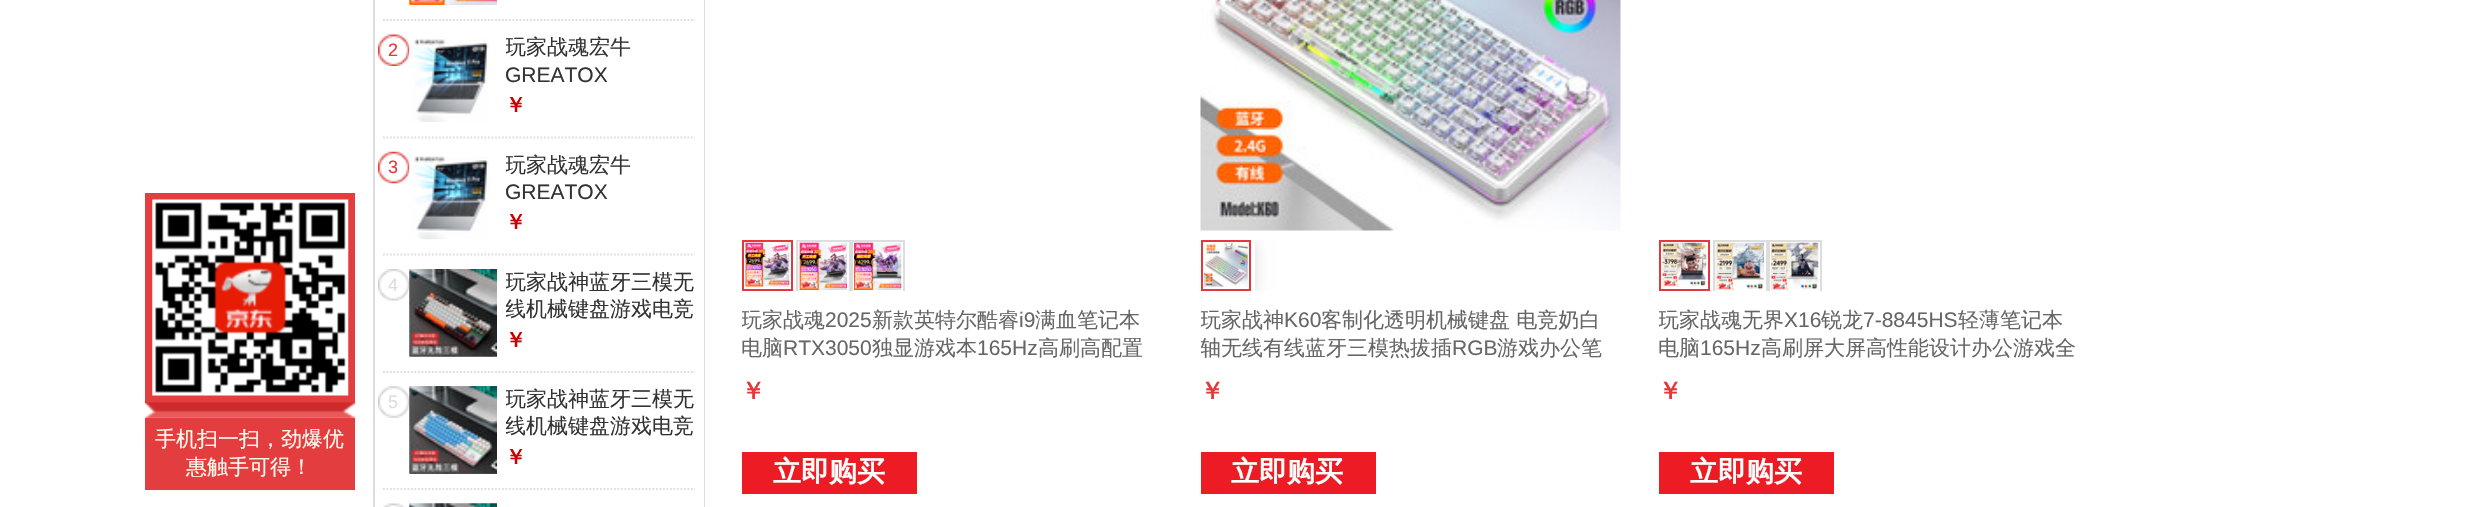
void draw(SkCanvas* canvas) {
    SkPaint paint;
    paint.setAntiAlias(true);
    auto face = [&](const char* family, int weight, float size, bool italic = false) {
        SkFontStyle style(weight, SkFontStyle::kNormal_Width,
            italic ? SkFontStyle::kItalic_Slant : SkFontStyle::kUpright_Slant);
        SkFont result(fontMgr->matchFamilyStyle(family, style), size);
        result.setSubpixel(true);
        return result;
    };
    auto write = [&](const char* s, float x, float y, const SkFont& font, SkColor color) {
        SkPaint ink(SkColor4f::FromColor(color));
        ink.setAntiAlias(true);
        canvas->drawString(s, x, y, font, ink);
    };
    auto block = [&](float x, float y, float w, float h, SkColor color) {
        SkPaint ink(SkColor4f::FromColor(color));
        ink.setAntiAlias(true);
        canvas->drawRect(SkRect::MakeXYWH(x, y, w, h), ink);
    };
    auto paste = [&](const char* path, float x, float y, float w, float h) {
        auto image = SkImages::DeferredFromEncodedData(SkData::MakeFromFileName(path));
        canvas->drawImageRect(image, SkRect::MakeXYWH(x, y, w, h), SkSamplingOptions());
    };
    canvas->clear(SK_ColorWHITE);
    block(145, 193, 210, 210, SkColorSetRGB(228, 61, 63));
    paste("pic1.png", 152, 199, 197, 197);
    paste("pic2.png", 145, 402, 211, 17);
    block(145, 418, 210, 72, SkColorSetRGB(228, 61, 63));
    auto kFont1 = face("WenQuanYi Zen Hei", 500, 21);
    write("手机扫一扫，劲爆优", 155, 446, kFont1, SkColorSetRGB(255, 251, 238));
    write("惠触手可得！", 186, 474, kFont1, SkColorSetRGB(255, 251, 238));
    block(704, 0, 1, 507, SkColorSetRGB(221, 221, 221));
    block(373, 0, 2, 507, SkColorSetRGB(221, 221, 221));
    paste("pic3.png", 409, 0, 88, 5);
    paste("pic4.png", 409, 0, 88, 5);
    paint.setStyle(SkPaint::kStroke_Style);
    paint.setStrokeWidth(1.8f);
    paint.setColor(SkColorSetRGB(222, 222, 222));
    paint.setPathEffect(SkDashPathEffect::Make({{1.75f, 1.75f}}, 0));
    canvas->drawPath(SkPathBuilder().moveTo(383, 20).lineTo(695, 20).detach(), paint);
    paint.setPathEffect(nullptr);
    paste("pic5.png", 378, 34, 32, 32);
    auto kFont2 = face("Liberation Sans", 400, 18);
    write("2", 388, 56, kFont2, SkColorSetRGB(228, 57, 60));
    paste("pic6.png", 409, 39, 80, 83);
    block(409, 43, 1, 13, SkColorSetARGB(128, 253, 253, 253));
    canvas->save();
    canvas->clipRect(SkRect::MakeXYWH(506, 35, 189, 56));
    write("玩家战魂宏牛", 505, 54, kFont1, SkColorSetRGB(51, 51, 51));
    canvas->restore();
    auto kFont3 = face("Liberation Sans", 400, 21);
    write("GREATOX", 505, 82, kFont3, SkColorSetRGB(51, 51, 51));
    auto kFont4 = face("WenQuanYi Zen Hei", 700, 21);
    write("￥", 505, 112, kFont4, SkColorSetRGB(204, 0, 0));
    paint.setPathEffect(SkDashPathEffect::Make({{1.75f, 1.75f}}, 0));
    canvas->drawPath(SkPathBuilder().moveTo(383, 137.5f).lineTo(695, 137.5f).detach(), paint);
    paint.setPathEffect(nullptr);
    paste("pic7.png", 378, 151, 32, 33);
    write("3", 388, 173, kFont2, SkColorSetRGB(228, 57, 60));
    paste("pic8.png", 409, 156, 80, 84);
    block(409, 161, 1, 13, SkColorSetARGB(128, 253, 253, 253));
    canvas->save();
    canvas->clipRect(SkRect::MakeXYWH(506, 152, 189, 56));
    write("玩家战魂宏牛", 505, 172, kFont1, SkColorSetRGB(51, 51, 51));
    canvas->restore();
    write("GREATOX", 505, 199, kFont3, SkColorSetRGB(51, 51, 51));
    write("￥", 505, 229, kFont4, SkColorSetRGB(204, 0, 0));
    paint.setPathEffect(SkDashPathEffect::Make({{1.75f, 1.75f}}, 0));
    canvas->drawPath(SkPathBuilder().moveTo(383, 254.5f).lineTo(695, 254.5f).detach(), paint);
    paint.setPathEffect(nullptr);
    paste("pic9.png", 378, 269, 32, 32);
    write("4", 388, 291, kFont2, SkColorSetRGB(221, 221, 221));
    paste("pic10.png", 409, 269, 88, 88);
    paste("pic11.png", 409, 269, 88, 88);
    canvas->save();
    canvas->clipRect(SkRect::MakeXYWH(506, 270, 189, 56));
    write("玩家战神蓝牙三模无", 505, 289, kFont1, SkColorSetRGB(51, 51, 51));
    write("线机械键盘游戏电竞", 505, 316, kFont1, SkColorSetRGB(51, 51, 51));
    canvas->restore();
    write("￥", 505, 347, kFont4, SkColorSetRGB(204, 0, 0));
    paint.setPathEffect(SkDashPathEffect::Make({{1.75f, 1.75f}}, 0));
    canvas->drawPath(SkPathBuilder().moveTo(383, 372).lineTo(695, 372).detach(), paint);
    paint.setPathEffect(nullptr);
    paste("pic12.png", 378, 386, 32, 32);
    write("5", 388, 408, kFont2, SkColorSetRGB(221, 221, 221));
    paste("pic13.png", 409, 386, 88, 88);
    paste("pic14.png", 409, 386, 88, 88);
    canvas->save();
    canvas->clipRect(SkRect::MakeXYWH(506, 387, 189, 56));
    write("玩家战神蓝牙三模无", 505, 406, kFont1, SkColorSetRGB(51, 51, 51));
    write("线机械键盘游戏电竞", 505, 433, kFont1, SkColorSetRGB(51, 51, 51));
    canvas->restore();
    write("￥", 505, 464, kFont4, SkColorSetRGB(204, 0, 0));
    paint.setPathEffect(SkDashPathEffect::Make({{1.75f, 1.75f}}, 0));
    canvas->drawPath(SkPathBuilder().moveTo(383, 489).lineTo(695, 489).detach(), paint);
    paint.setPathEffect(nullptr);
    paste("pic15.png", 383, 503, 22, 4);
    paste("pic16.png", 409, 503, 88, 4);
    paste("pic17.png", 409, 503, 88, 4);
    canvas->save();
    canvas->clipRect(SkRect::MakeXYWH(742, 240, 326, 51));
    canvas->clipRect(SkRect::MakeXYWH(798, 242, 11, 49));
    paint.setStyle(SkPaint::kFill_Style);
    paint.setColor(SkColorSetRGB(221, 221, 221));
    paint.setMaskFilter(SkMaskFilter::MakeBlur(kNormal_SkBlurStyle, 7));
    canvas->drawRect(SkRect::MakeXYWH(742, 240, 54, 54), paint);
    paint.setMaskFilter(nullptr);
    canvas->restore();
    paint.setStyle(SkPaint::kStroke_Style);
    paint.setStrokeWidth(2);
    paint.setColor(SkColorSetRGB(228, 57, 60));
    canvas->drawRect(SkRect::MakeXYWH(743, 241, 49, 49), paint);
    paste("pic18.png", 745, 242, 45, 45);
    canvas->save();
    canvas->clipRect(SkRect::MakeXYWH(796, 240, 55, 51));
    paint.setColor(SkColorSetRGB(221, 221, 221));
    canvas->drawRect(SkRect::MakeXYWH(797, 241, 53, 52), paint);
    canvas->restore();
    paste("pic19.png", 799, 242, 48, 48);
    canvas->save();
    canvas->clipRect(SkRect::MakeXYWH(851, 240, 54, 51));
    canvas->drawRect(SkRect::MakeXYWH(852, 241, 52, 52), paint);
    canvas->restore();
    paste("pic20.png", 854, 242, 48, 48);
    canvas->save();
    canvas->clipRect(SkRect::MakeXYWH(742, 308, 420, 56));
    write("玩家战魂", 741, 327, kFont1, SkColorSetRGB(102, 102, 102));
    canvas->restore();
    write("2025", 825, 327, kFont3, SkColorSetRGB(102, 102, 102));
    write("新款英特尔酷睿", 872, 327, kFont1, SkColorSetRGB(102, 102, 102));
    write("i9", 1019, 327, kFont3, SkColorSetRGB(102, 102, 102));
    write("满血笔记本", 1035, 327, kFont1, SkColorSetRGB(102, 102, 102));
    write("电脑", 741, 355, kFont1, SkColorSetRGB(102, 102, 102));
    write("RTX3050", 783, 355, kFont3, SkColorSetRGB(102, 102, 102));
    write("独显游戏本", 872, 355, kFont1, SkColorSetRGB(102, 102, 102));
    write("165Hz", 977, 355, kFont3, SkColorSetRGB(102, 102, 102));
    write("高刷高配置", 1038, 355, kFont1, SkColorSetRGB(102, 102, 102));
    auto kFont5 = face("WenQuanYi Zen Hei", 700, 24);
    write("￥", 741, 399, kFont5, SkColorSetRGB(228, 57, 60));
    block(742, 452, 175, 42, SkColorSetRGB(237, 28, 36));
    auto kFont6 = face("WenQuanYi Zen Hei", 700, 28);
    write("立即购买", 773, 481, kFont6, SK_ColorWHITE);
    paste("pic21.png", 1200, 0, 421, 231);
    canvas->save();
    canvas->clipRect(SkRect::MakeXYWH(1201, 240, 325, 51));
    canvas->clipPath(SkPathBuilder(SkPathFillType::kEvenOdd).moveTo(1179, 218).lineTo(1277, 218).lineTo(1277, 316).lineTo(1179, 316).close().moveTo(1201, 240).lineTo(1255, 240).lineTo(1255, 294).lineTo(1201, 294).close().detach(), true);
    paint.setStyle(SkPaint::kFill_Style);
    paint.setMaskFilter(SkMaskFilter::MakeBlur(kNormal_SkBlurStyle, 7));
    canvas->drawRect(SkRect::MakeXYWH(1201, 240, 54, 54), paint);
    paint.setMaskFilter(nullptr);
    canvas->restore();
    paint.setStyle(SkPaint::kStroke_Style);
    paint.setColor(SkColorSetRGB(228, 57, 60));
    canvas->drawRect(SkRect::MakeXYWH(1202, 241, 48, 49), paint);
    paste("pic22.png", 1204, 242, 44, 45);
    canvas->save();
    canvas->clipRect(SkRect::MakeXYWH(1201, 308, 420, 56));
    write("玩家战神", 1200, 327, kFont1, SkColorSetRGB(102, 102, 102));
    canvas->restore();
    write("K60", 1284, 327, kFont3, SkColorSetRGB(102, 102, 102));
    write("客制化透明机械键盘 电竞奶白", 1321, 327, kFont1, SkColorSetRGB(102, 102, 102));
    canvas->save();
    canvas->clipRect(SkRect::MakeXYWH(1201, 308, 420, 56));
    write("轴无线有线蓝牙三模热拔插", 1200, 355, kFont1, SkColorSetRGB(102, 102, 102));
    canvas->restore();
    write("RGB", 1452, 355, kFont3, SkColorSetRGB(102, 102, 102));
    write("游戏办公笔", 1497, 355, kFont1, SkColorSetRGB(102, 102, 102));
    write("￥", 1200, 399, kFont5, SkColorSetRGB(228, 57, 60));
    block(1201, 452, 175, 42, SkColorSetRGB(237, 28, 36));
    write("立即购买", 1231, 481, kFont6, SK_ColorWHITE);
    canvas->save();
    canvas->clipRect(SkRect::MakeXYWH(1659, 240, 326, 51));
    canvas->clipRect(SkRect::MakeXYWH(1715, 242, 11, 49));
    paint.setStyle(SkPaint::kFill_Style);
    paint.setColor(SkColorSetRGB(221, 221, 221));
    paint.setMaskFilter(SkMaskFilter::MakeBlur(kNormal_SkBlurStyle, 7));
    canvas->drawRect(SkRect::MakeXYWH(1659, 240, 54, 54), paint);
    paint.setMaskFilter(nullptr);
    canvas->restore();
    paint.setStyle(SkPaint::kStroke_Style);
    paint.setColor(SkColorSetRGB(228, 57, 60));
    canvas->drawRect(SkRect::MakeXYWH(1660, 241, 49, 49), paint);
    paste("pic23.png", 1662, 242, 45, 45);
    canvas->save();
    canvas->clipRect(SkRect::MakeXYWH(1713, 240, 55, 51));
    paint.setColor(SkColorSetRGB(221, 221, 221));
    canvas->drawRect(SkRect::MakeXYWH(1714, 241, 53, 52), paint);
    canvas->restore();
    paste("pic24.png", 1716, 242, 48, 48);
    canvas->save();
    canvas->clipRect(SkRect::MakeXYWH(1768, 240, 54, 51));
    canvas->drawRect(SkRect::MakeXYWH(1769, 241, 52, 52), paint);
    canvas->restore();
    paste("pic25.png", 1771, 242, 48, 48);
    canvas->save();
    canvas->clipRect(SkRect::MakeXYWH(1659, 308, 420, 56));
    write("玩家战魂无界", 1658, 327, kFont1, SkColorSetRGB(102, 102, 102));
    canvas->restore();
    write("X16", 1784, 327, kFont3, SkColorSetRGB(102, 102, 102));
    write("锐龙", 1821, 327, kFont1, SkColorSetRGB(102, 102, 102));
    write("7-8845HS", 1863, 327, kFont3, SkColorSetRGB(102, 102, 102));
    write("轻薄笔记本", 1958, 327, kFont1, SkColorSetRGB(102, 102, 102));
    write("电脑", 1658, 355, kFont1, SkColorSetRGB(102, 102, 102));
    write("165Hz", 1700, 355, kFont3, SkColorSetRGB(102, 102, 102));
    write("高刷屏大屏高性能设计办公游戏全", 1761, 355, kFont1, SkColorSetRGB(102, 102, 102));
    write("￥", 1658, 399, kFont5, SkColorSetRGB(228, 57, 60));
    block(1659, 452, 175, 42, SkColorSetRGB(237, 28, 36));
    write("立即购买", 1690, 481, kFont6, SK_ColorWHITE);
}
